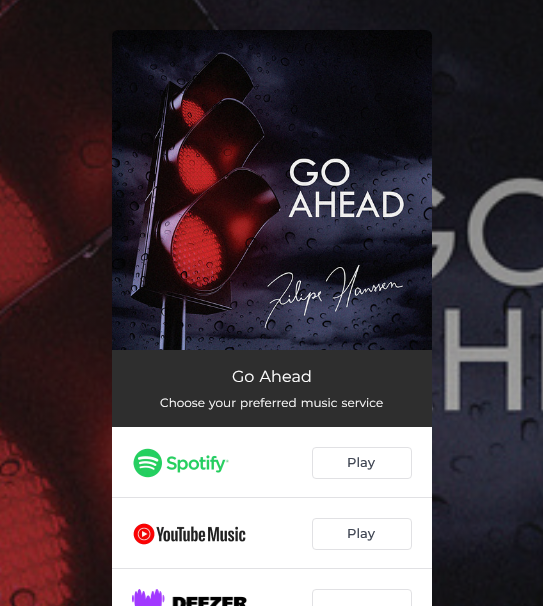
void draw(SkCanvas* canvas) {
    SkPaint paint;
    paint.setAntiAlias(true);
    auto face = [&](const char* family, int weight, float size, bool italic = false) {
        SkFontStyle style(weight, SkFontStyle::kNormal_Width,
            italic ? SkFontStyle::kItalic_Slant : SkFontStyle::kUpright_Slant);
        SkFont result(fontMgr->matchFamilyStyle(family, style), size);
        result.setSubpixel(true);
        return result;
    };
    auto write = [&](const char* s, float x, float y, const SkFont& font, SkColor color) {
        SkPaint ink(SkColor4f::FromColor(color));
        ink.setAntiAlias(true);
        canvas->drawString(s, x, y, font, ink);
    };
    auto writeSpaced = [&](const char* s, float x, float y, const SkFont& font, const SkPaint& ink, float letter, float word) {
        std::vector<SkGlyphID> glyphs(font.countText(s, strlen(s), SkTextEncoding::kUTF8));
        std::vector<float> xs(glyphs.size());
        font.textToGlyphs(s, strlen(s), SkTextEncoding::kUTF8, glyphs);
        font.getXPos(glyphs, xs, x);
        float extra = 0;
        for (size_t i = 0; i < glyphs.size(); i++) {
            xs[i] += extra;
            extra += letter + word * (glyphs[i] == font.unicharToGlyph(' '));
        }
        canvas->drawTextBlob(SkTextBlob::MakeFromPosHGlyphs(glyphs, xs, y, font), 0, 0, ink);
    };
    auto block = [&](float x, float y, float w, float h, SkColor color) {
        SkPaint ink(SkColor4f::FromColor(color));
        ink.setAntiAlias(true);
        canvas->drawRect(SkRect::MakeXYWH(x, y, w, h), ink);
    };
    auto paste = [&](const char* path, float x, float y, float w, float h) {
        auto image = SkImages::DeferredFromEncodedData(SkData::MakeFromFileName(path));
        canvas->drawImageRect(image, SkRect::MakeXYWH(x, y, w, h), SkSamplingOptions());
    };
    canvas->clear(SK_ColorWHITE);
    paste("pic1.png", 0, 0, 543, 606);
    paste("pic2.png", 112, 30, 320, 320);
    block(112, 350, 320, 77, SkColorSetRGB(46, 46, 46));
    auto kFont1 = face("Montserrat", 400, 16);
    paint.setColor(SK_ColorWHITE);
    writeSpaced("Go Ahead", 232, 382, kFont1, paint, 0, 1);
    auto kFont2 = face("Montserrat", 400, 12);
    writeSpaced("Choose your preferred music service", 160, 407, kFont2, paint, 0, 1);
    block(112, 427, 320, 179, SK_ColorWHITE);
    block(112, 497, 320, 1, SkColorSetRGB(225, 225, 228));
    paste("pic3.png", 133, 448, 96, 30);
    paint.setStyle(SkPaint::kStroke_Style);
    paint.setStrokeWidth(1);
    paint.setColor(SkColorSetRGB(225, 225, 228));
    canvas->drawRoundRect(SkRect::MakeXYWH(312.5f, 447.5f, 99, 31), 3.5f, 3.5f, paint);
    auto kFont3 = face("Montserrat", 500, 13);
    write("Play", 347, 467, kFont3, SkColorSetRGB(65, 71, 84));
    block(112, 568, 320, 1, SkColorSetRGB(225, 225, 228));
    paste("pic4.png", 133, 523, 113, 22);
    canvas->drawRoundRect(SkRect::MakeXYWH(312.5f, 518.5f, 99, 31), 3.5f, 3.5f, paint);
    write("Play", 347, 538, kFont3, SkColorSetRGB(65, 71, 84));
    paste("pic5.png", 132, 589, 115, 17);
    canvas->drawRoundRect(SkRect::MakeXYWH(312.5f, 589.5f, 99, 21), 3.5f, 3.5f, paint);
}
